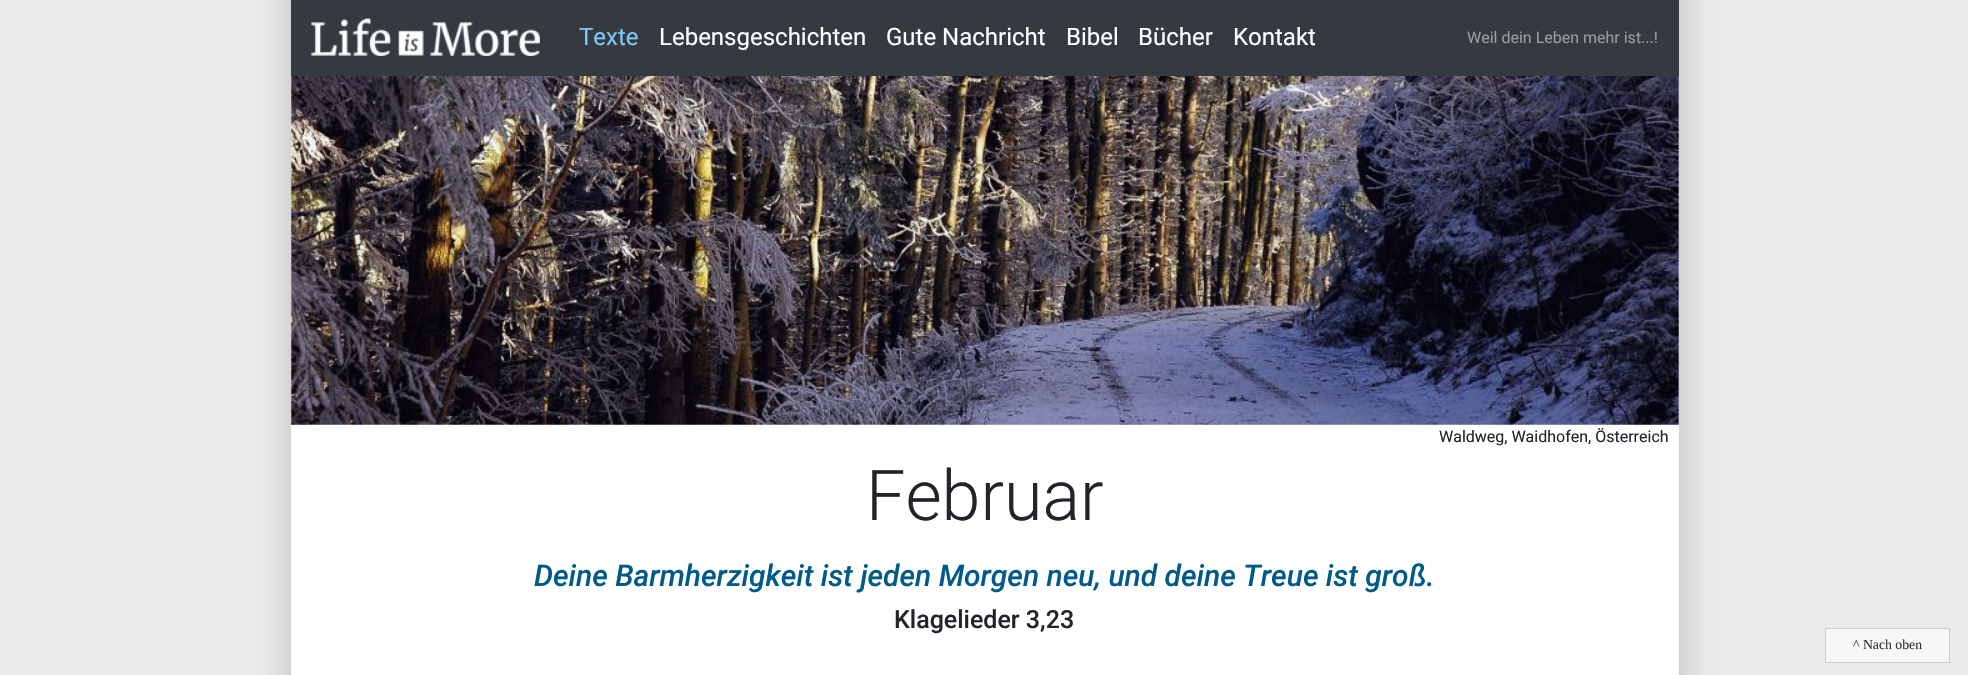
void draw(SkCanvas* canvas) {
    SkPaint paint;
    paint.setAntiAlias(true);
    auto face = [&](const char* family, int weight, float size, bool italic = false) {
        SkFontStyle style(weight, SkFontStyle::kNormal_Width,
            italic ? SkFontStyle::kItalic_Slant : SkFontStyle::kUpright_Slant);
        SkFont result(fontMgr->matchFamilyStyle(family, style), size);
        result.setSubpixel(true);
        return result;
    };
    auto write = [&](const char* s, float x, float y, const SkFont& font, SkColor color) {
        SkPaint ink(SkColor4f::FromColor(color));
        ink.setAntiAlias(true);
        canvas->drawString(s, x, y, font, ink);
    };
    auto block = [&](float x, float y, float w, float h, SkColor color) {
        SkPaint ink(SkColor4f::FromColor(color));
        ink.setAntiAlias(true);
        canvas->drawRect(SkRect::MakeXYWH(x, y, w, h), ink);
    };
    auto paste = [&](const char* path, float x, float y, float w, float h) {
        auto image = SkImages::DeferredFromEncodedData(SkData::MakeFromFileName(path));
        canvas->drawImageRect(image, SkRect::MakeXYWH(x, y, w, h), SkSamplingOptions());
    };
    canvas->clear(SkColorSetRGB(235, 235, 235));
    paint.setColor(SkColorSetARGB(51, 0, 0, 0));
    paint.setMaskFilter(SkMaskFilter::MakeBlur(kNormal_SkBlurStyle, 19));
    canvas->drawRect(SkRect::MakeXYWH(291, -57, 1388, 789), paint);
    paint.setMaskFilter(nullptr);
    block(291, 76, 1388, 599, SK_ColorWHITE);
    block(291, 0, 1388, 76, SkColorSetRGB(52, 58, 64));
    paste("pic1.png", 311, 18, 229, 38);
    auto kFont1 = face("Roboto", 400, 24);
    write("Texte", 579, 45, kFont1, SkColorSetRGB(132, 197, 246));
    write("Lebensgeschichten", 659, 45, kFont1, SK_ColorWHITE);
    write("Gute Nachricht", 886, 45, kFont1, SK_ColorWHITE);
    write("Bibel", 1066, 45, kFont1, SK_ColorWHITE);
    write("Bücher", 1138, 45, kFont1, SK_ColorWHITE);
    write("Kontakt", 1233, 45, kFont1, SK_ColorWHITE);
    auto kFont2 = face("Roboto", 400, 16);
    write("Weil dein Leben mehr ist...!", 1467, 43, kFont2, SkColorSetRGB(154, 157, 160));
    paste("pic2.png", 291, 76, 1388, 349);
    write("Waldweg, Waidhofen, Österreich", 1439, 442, kFont2, SkColorSetRGB(33, 37, 41));
    auto kFont3 = face("Roboto", 300, 70);
    write("Februar", 866, 520, kFont3, SkColorSetRGB(33, 37, 41));
    auto kFont4 = face("Roboto", 500, 30, true);
    write("Deine Barmherzigkeit ist jeden Morgen neu, und deine Treue ist groß.", 534, 586, kFont4, SkColorSetRGB(0, 90, 136));
    auto kFont5 = face("Roboto", 500, 25);
    write("Klagelieder 3,23", 894, 628, kFont5, SkColorSetRGB(33, 37, 41));
    paint.setColor(SkColorSetRGB(247, 247, 247));
    canvas->drawRect(SkRect::MakeXYWH(1825.5f, 628.5f, 124, 34), paint);
    paint.setStyle(SkPaint::kStroke_Style);
    paint.setStrokeWidth(1);
    paint.setColor(SkColorSetRGB(204, 204, 204));
    canvas->drawRect(SkRect::MakeXYWH(1825.5f, 628.5f, 124, 34), paint);
    auto kFont6 = face("Liberation Serif", 400, 13.75f);
    write("^ Nach oben", 1853, 649, kFont6, SkColorSetRGB(51, 51, 51));
}
